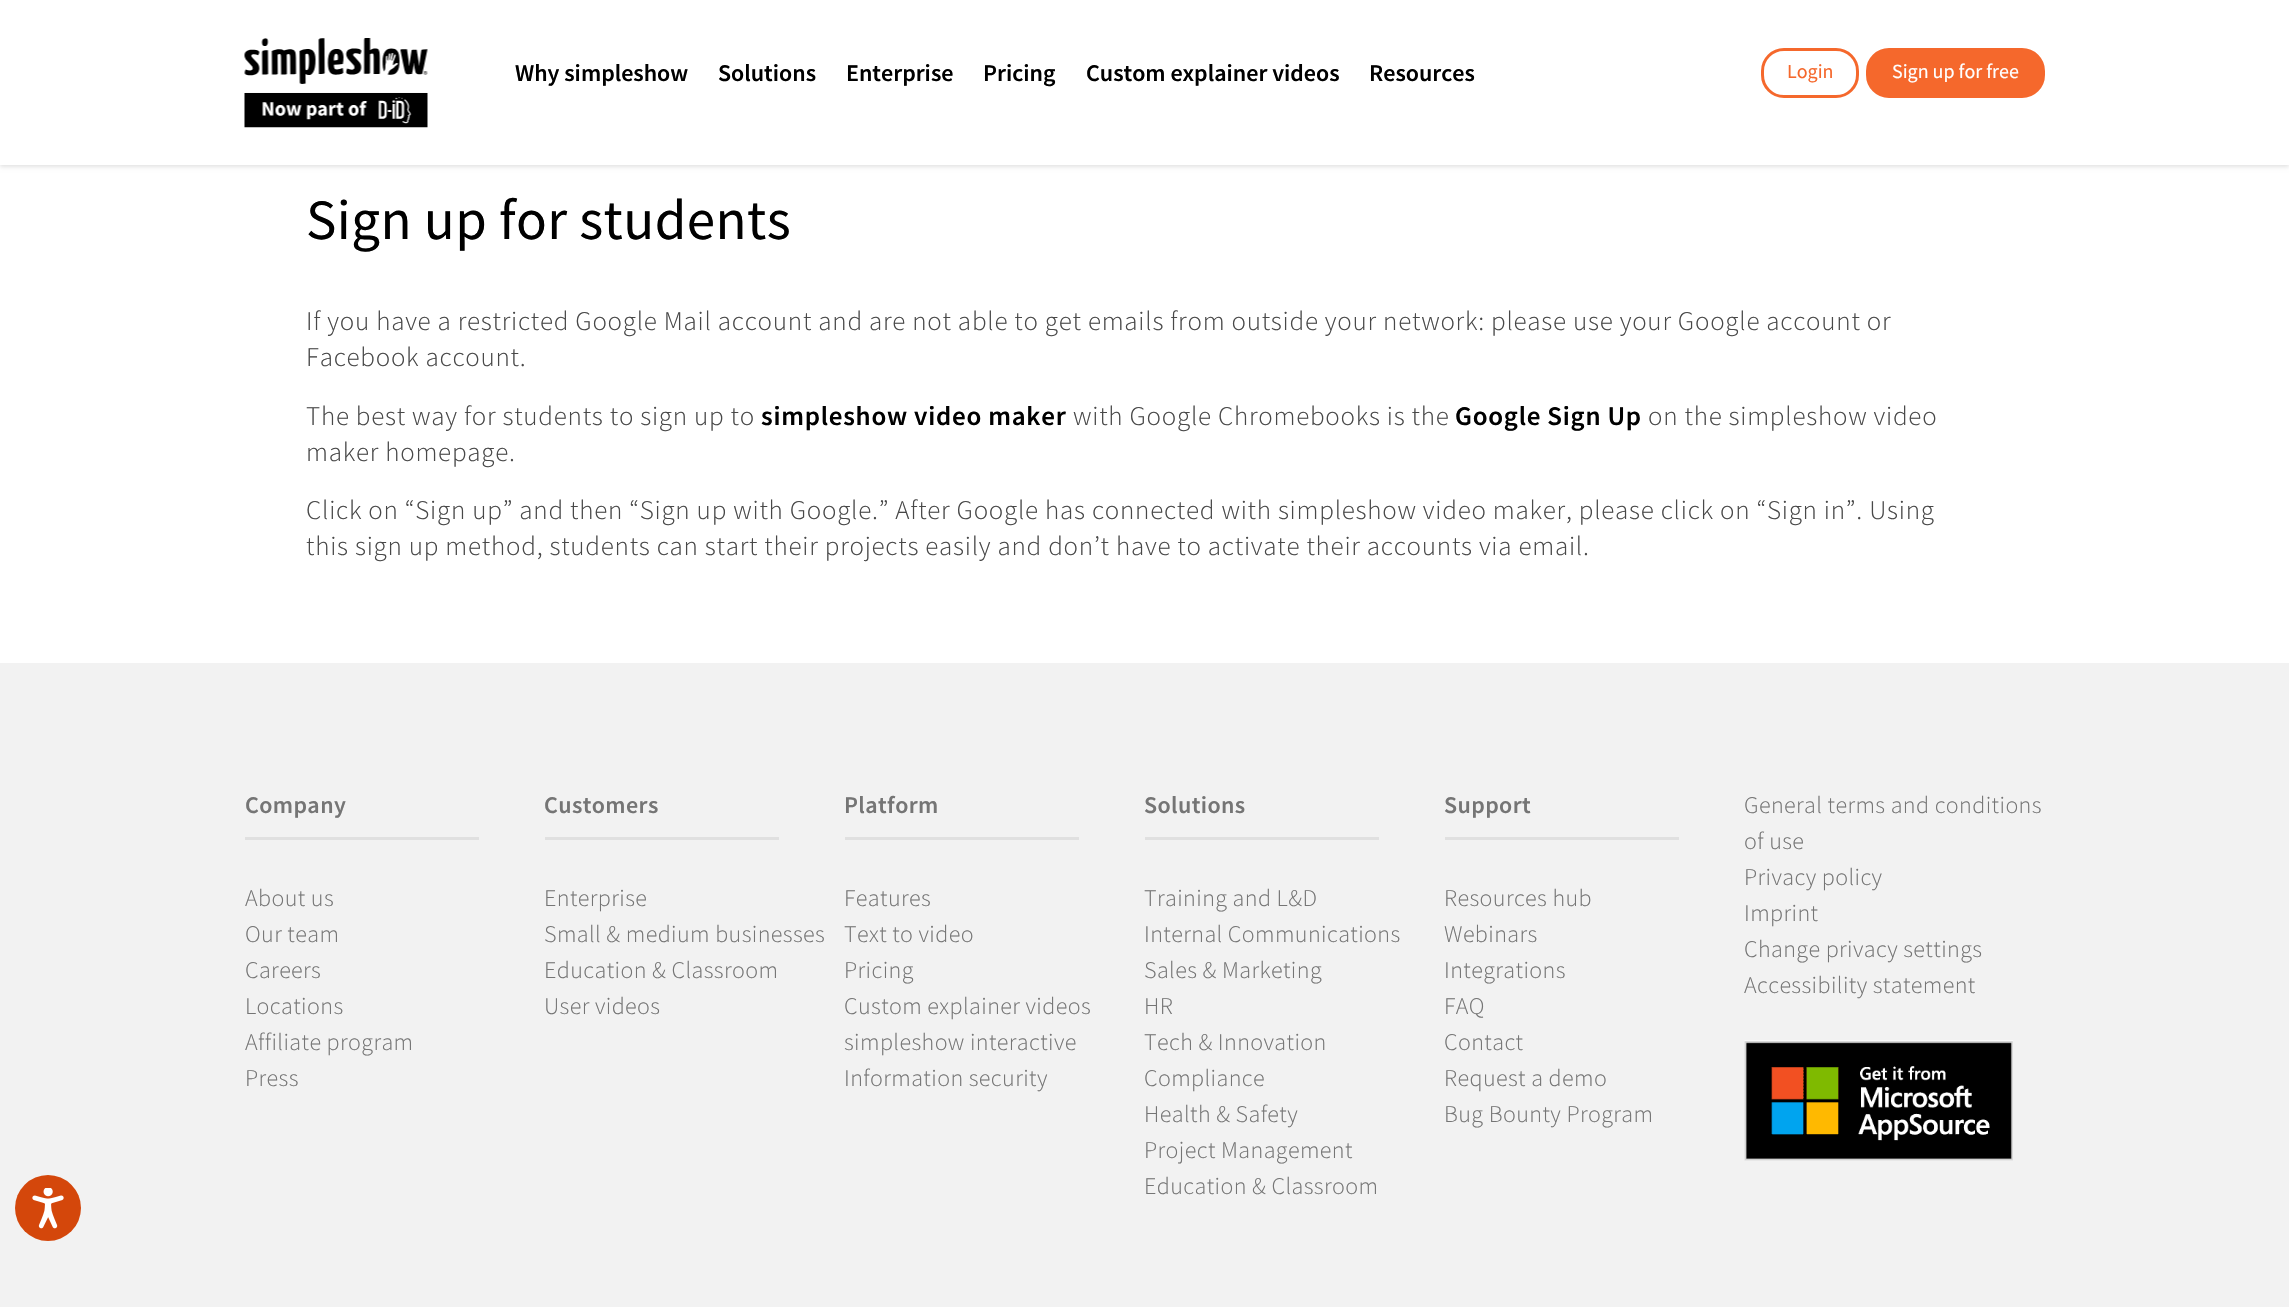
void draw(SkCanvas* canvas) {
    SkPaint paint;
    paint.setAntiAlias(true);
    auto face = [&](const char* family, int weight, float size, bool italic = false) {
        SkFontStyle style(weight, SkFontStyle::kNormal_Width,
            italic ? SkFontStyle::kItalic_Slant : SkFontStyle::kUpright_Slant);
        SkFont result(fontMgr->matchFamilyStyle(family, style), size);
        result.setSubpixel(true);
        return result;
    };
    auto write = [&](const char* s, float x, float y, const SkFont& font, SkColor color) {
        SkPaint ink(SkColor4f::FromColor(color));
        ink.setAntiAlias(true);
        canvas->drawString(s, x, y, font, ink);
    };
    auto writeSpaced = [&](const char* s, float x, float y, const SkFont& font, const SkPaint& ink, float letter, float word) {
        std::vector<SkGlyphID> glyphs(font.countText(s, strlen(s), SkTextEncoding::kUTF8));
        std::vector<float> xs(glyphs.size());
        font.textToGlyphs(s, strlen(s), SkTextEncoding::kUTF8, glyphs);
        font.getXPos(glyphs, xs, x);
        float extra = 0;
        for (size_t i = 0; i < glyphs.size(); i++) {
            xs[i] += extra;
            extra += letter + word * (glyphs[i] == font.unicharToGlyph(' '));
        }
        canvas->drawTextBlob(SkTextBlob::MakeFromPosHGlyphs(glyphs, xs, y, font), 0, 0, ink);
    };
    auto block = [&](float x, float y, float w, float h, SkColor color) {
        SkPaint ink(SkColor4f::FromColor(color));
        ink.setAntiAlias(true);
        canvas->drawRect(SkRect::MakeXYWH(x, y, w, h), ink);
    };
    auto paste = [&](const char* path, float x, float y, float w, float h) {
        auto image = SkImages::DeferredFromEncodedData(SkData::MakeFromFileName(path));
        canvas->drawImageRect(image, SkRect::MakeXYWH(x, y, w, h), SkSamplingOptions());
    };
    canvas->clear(SK_ColorWHITE);
    paint.setColor(SkColorSetARGB(28, 0, 0, 0));
    paint.setMaskFilter(SkMaskFilter::MakeBlur(kNormal_SkBlurStyle, 2));
    canvas->drawRect(SkRect::MakeXYWH(0, 2, 2289, 165), paint);
    paint.setMaskFilter(nullptr);
    block(0, 0, 2289, 165, SK_ColorWHITE);
    paste("pic1.png", 244, 38, 184, 90);
    auto kFont1 = face("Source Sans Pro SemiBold", 600, 24);
    write("Why simpleshow", 515, 81, kFont1, SK_ColorBLACK);
    write("Solutions", 718, 81, kFont1, SK_ColorBLACK);
    write("Enterprise", 846, 81, kFont1, SK_ColorBLACK);
    write("Pricing", 983, 81, kFont1, SK_ColorBLACK);
    write("Custom explainer videos", 1086, 81, kFont1, SK_ColorBLACK);
    write("Resources", 1369, 81, kFont1, SK_ColorBLACK);
    paint.setStyle(SkPaint::kStroke_Style);
    paint.setStrokeWidth(3);
    paint.setColor(SkColorSetRGB(245, 104, 44));
    canvas->drawRoundRect(SkRect::MakeXYWH(1762.5f, 49.5f, 95, 47), 21.5f, 21.5f, paint);
    auto kFont2 = face("Source Sans Pro", 400, 20);
    write("Login", 1787, 78, kFont2, SkColorSetRGB(245, 104, 44));
    paint.setStyle(SkPaint::kFill_Style);
    canvas->drawRoundRect(SkRect::MakeXYWH(1867.5f, 49.5f, 176, 47), 21.5f, 21.5f, paint);
    paint.setStyle(SkPaint::kStroke_Style);
    canvas->drawRoundRect(SkRect::MakeXYWH(1867.5f, 49.5f, 176, 47), 21.5f, 21.5f, paint);
    write("Sign up for free", 1892, 78, kFont2, SK_ColorWHITE);
    auto kFont3 = face("Source Sans Pro", 400, 57);
    paint.setStyle(SkPaint::kFill_Style);
    paint.setColor(SK_ColorBLACK);
    writeSpaced("Sign up for students", 306, 239, kFont3, paint, 0.4f, 0);
    auto kFont4 = face("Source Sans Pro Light", 300, 27);
    paint.setColor(SkColorSetRGB(72, 72, 72));
    writeSpaced("If you have a restricted Google Mail account and are not able to get emails from outside your network: please use your Google account or", 306, 330, kFont4, paint, 0.75f, 0);
    writeSpaced("Facebook account.", 306, 366, kFont4, paint, 0.75f, 0);
    writeSpaced("The best way for students to sign up to", 306, 425, kFont4, paint, 0.75f, 0);
    auto kFont5 = face("Source Sans Pro SemiBold", 600, 27);
    paint.setColor(SK_ColorBLACK);
    writeSpaced("simpleshow video maker", 761, 425, kFont5, paint, 0.75f, 0);
    paint.setColor(SkColorSetRGB(72, 72, 72));
    writeSpaced("with Google Chromebooks is the", 1073, 425, kFont4, paint, 0.75f, 0);
    paint.setColor(SK_ColorBLACK);
    writeSpaced("Google Sign Up", 1455, 425, kFont5, paint, 0.75f, 0);
    paint.setColor(SkColorSetRGB(72, 72, 72));
    writeSpaced("on the simpleshow video", 1648, 425, kFont4, paint, 0.75f, 0);
    writeSpaced("maker homepage.", 306, 461, kFont4, paint, 0.75f, 0);
    writeSpaced("Click on “Sign up” and then “Sign up with Google.” After Google has connected with simpleshow video maker, please click on “Sign in”. Using", 306, 519, kFont4, paint, 0.75f, 0);
    writeSpaced("this sign up method, students can start their projects easily and don’t have to activate their accounts via email.", 306, 555, kFont4, paint, 0.75f, 0);
    block(0, 663, 2289, 644, SkColorSetRGB(242, 242, 242));
    block(245, 837, 234, 3, SkColorSetRGB(224, 224, 224));
    paint.setColor(SkColorSetRGB(117, 117, 117));
    writeSpaced("Company", 245, 813, kFont1, paint, 0.4f, 0);
    auto kFont6 = face("Source Sans Pro Light", 300, 24);
    writeSpaced("About us", 245, 906, kFont6, paint, 0.4f, 0);
    writeSpaced("Our team", 245, 942, kFont6, paint, 0.4f, 0);
    writeSpaced("Careers", 245, 978, kFont6, paint, 0.4f, 0);
    writeSpaced("Locations", 245, 1014, kFont6, paint, 0.4f, 0);
    writeSpaced("Affiliate program", 245, 1050, kFont6, paint, 0.4f, 0);
    writeSpaced("Press", 245, 1086, kFont6, paint, 0.4f, 0);
    block(545, 837, 234, 3, SkColorSetRGB(224, 224, 224));
    writeSpaced("Customers", 544, 813, kFont1, paint, 0.4f, 0);
    writeSpaced("Enterprise", 544, 906, kFont6, paint, 0.4f, 0);
    writeSpaced("Small & medium businesses", 544, 942, kFont6, paint, 0.4f, 0);
    writeSpaced("Education & Classroom", 544, 978, kFont6, paint, 0.4f, 0);
    writeSpaced("User videos", 544, 1014, kFont6, paint, 0.4f, 0);
    block(845, 837, 234, 3, SkColorSetRGB(224, 224, 224));
    writeSpaced("Platform", 844, 813, kFont1, paint, 0.4f, 0);
    writeSpaced("Features", 844, 906, kFont6, paint, 0.4f, 0);
    writeSpaced("Text to video", 844, 942, kFont6, paint, 0.4f, 0);
    writeSpaced("Pricing", 844, 978, kFont6, paint, 0.4f, 0);
    writeSpaced("Custom explainer videos", 844, 1014, kFont6, paint, 0.4f, 0);
    writeSpaced("simpleshow interactive", 844, 1050, kFont6, paint, 0.4f, 0);
    writeSpaced("Information security", 844, 1086, kFont6, paint, 0.4f, 0);
    block(1145, 837, 234, 3, SkColorSetRGB(224, 224, 224));
    writeSpaced("Solutions", 1144, 813, kFont1, paint, 0.4f, 0);
    writeSpaced("Training and L&D", 1144, 906, kFont6, paint, 0.4f, 0);
    writeSpaced("Internal Communications", 1144, 942, kFont6, paint, 0.4f, 0);
    writeSpaced("Sales & Marketing", 1144, 978, kFont6, paint, 0.4f, 0);
    writeSpaced("HR", 1144, 1014, kFont6, paint, 0.4f, 0);
    writeSpaced("Tech & Innovation", 1144, 1050, kFont6, paint, 0.4f, 0);
    writeSpaced("Compliance", 1144, 1086, kFont6, paint, 0.4f, 0);
    writeSpaced("Health & Safety", 1144, 1122, kFont6, paint, 0.4f, 0);
    writeSpaced("Project Management", 1144, 1158, kFont6, paint, 0.4f, 0);
    writeSpaced("Education & Classroom", 1144, 1194, kFont6, paint, 0.4f, 0);
    block(1445, 837, 234, 3, SkColorSetRGB(224, 224, 224));
    writeSpaced("Support", 1444, 813, kFont1, paint, 0.4f, 0);
    writeSpaced("Resources hub", 1444, 906, kFont6, paint, 0.4f, 0);
    writeSpaced("Webinars", 1444, 942, kFont6, paint, 0.4f, 0);
    writeSpaced("Integrations", 1444, 978, kFont6, paint, 0.4f, 0);
    writeSpaced("FAQ", 1444, 1014, kFont6, paint, 0.4f, 0);
    writeSpaced("Contact", 1444, 1050, kFont6, paint, 0.4f, 0);
    writeSpaced("Request a demo", 1444, 1086, kFont6, paint, 0.4f, 0);
    writeSpaced("Bug Bounty Program", 1444, 1122, kFont6, paint, 0.4f, 0);
    writeSpaced("General terms and conditions", 1744, 813, kFont6, paint, 0.4f, 0);
    writeSpaced("of use", 1744, 849, kFont6, paint, 0.4f, 0);
    writeSpaced("Privacy policy", 1744, 885, kFont6, paint, 0.4f, 0);
    writeSpaced("Imprint", 1744, 921, kFont6, paint, 0.4f, 0);
    writeSpaced("Change privacy settings", 1744, 957, kFont6, paint, 0.4f, 0);
    writeSpaced("Accessibility statement", 1744, 993, kFont6, paint, 0.4f, 0);
    paste("pic2.png", 1744, 1040, 269, 121);
    paint.setColor(SkColorSetRGB(212, 71, 11));
    canvas->drawCircle(48, 1208, 33, paint);
    paste("pic3.png", 32, 1188, 32, 41);
}
